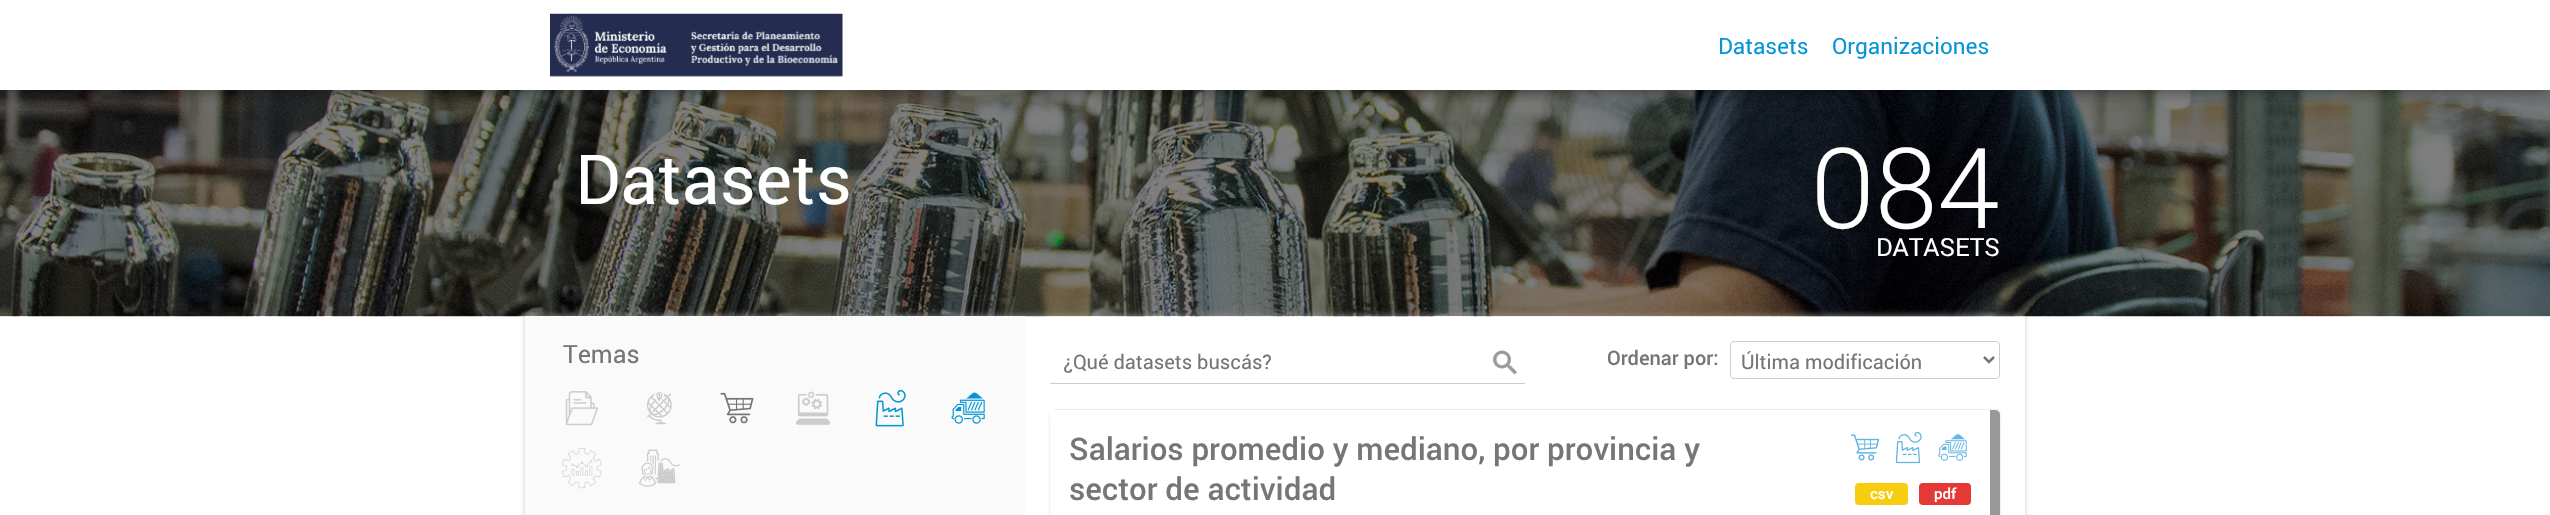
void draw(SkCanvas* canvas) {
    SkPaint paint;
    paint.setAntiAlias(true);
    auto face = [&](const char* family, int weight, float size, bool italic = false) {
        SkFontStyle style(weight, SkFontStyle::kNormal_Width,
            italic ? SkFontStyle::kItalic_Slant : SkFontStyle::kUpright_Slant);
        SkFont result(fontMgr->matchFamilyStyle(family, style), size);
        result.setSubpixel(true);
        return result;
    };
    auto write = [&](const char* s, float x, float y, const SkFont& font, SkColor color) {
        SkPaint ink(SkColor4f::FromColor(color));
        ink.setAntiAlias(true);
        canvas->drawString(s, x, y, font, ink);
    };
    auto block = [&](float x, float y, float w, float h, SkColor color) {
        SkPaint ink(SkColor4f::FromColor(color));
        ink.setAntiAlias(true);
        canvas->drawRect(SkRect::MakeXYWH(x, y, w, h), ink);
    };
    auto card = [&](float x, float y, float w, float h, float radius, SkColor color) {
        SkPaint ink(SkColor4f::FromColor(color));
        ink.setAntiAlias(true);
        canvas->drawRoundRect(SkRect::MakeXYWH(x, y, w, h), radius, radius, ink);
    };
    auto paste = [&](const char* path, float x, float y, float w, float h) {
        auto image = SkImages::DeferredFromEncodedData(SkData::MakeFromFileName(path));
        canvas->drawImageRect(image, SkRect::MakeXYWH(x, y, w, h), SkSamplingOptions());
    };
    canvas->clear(SK_ColorWHITE);
    paste("pic2.png", 0, 90, 2550, 227);
    canvas->save();
    canvas->clipRect(SkRect::MakeXYWH(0, 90, 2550, 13));
    paint.setColor(SkColorSetARGB(128, 0, 0, 0));
    paint.setMaskFilter(SkMaskFilter::MakeBlur(kNormal_SkBlurStyle, 7.5f));
    canvas->drawRect(SkRect::MakeXYWH(0, 0, 2550, 90), paint);
    paint.setMaskFilter(nullptr);
    canvas->restore();
    paste("pic1.png", 550, 13, 293, 64);
    auto kFont1 = face("Roboto", 400, 22.5f);
    write("Datasets", 1718, 54, kFont1, SkColorSetRGB(6, 149, 214));
    write("Organizaciones", 1832, 54, kFont1, SkColorSetRGB(6, 149, 214));
    auto kFont2 = face("Roboto", 400, 68.75f);
    write("Datasets", 575, 204, kFont2, SK_ColorWHITE);
    auto kFont3 = face("Roboto", 300, 112);
    write("084", 1810, 228, kFont3, SK_ColorWHITE);
    auto kFont4 = face("Roboto", 400, 25);
    write("DATASETS", 1876, 256, kFont4, SK_ColorWHITE);
    canvas->save();
    canvas->clipPath(SkPathBuilder(SkPathFillType::kEvenOdd).moveTo(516, 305).lineTo(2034, 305).lineTo(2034, 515).lineTo(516, 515).close().moveTo(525, 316).lineTo(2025, 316).lineTo(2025, 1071).lineTo(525, 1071).close().detach(), true);
    paint.setColor(SkColorSetARGB(128, 150, 150, 150));
    paint.setMaskFilter(SkMaskFilter::MakeBlur(kNormal_SkBlurStyle, 2.5f));
    canvas->drawRect(SkRect::MakeXYWH(525, 314, 1500, 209), paint);
    paint.setMaskFilter(nullptr);
    canvas->restore();
    block(525, 316, 500, 199, SkColorSetRGB(250, 250, 250));
    write("Temas", 563, 363, kFont4, SkColorSetRGB(118, 118, 118));
    paste("pic3.png", 565, 391, 33, 35);
    paste("pic4.png", 647, 392, 25, 33);
    paste("pic5.png", 720, 392, 34, 32);
    paste("pic6.png", 796, 391, 35, 34);
    paste("pic7.png", 875, 389, 31, 38);
    paste("pic8.png", 951, 392, 34, 32);
    paste("pic9.png", 562, 448, 40, 41);
    paste("pic10.png", 639, 449, 41, 38);
    block(1050, 383, 475, 1, SkColorSetRGB(204, 204, 204));
    auto kFont5 = face("Roboto", 400, 20);
    write("¿Qué datasets buscás?", 1063, 369, kFont5, SkColorSetRGB(118, 118, 118));
    paste("pic11.png", 1493, 350, 24, 25);
    auto kFont6 = face("Roboto", 500, 20);
    write("Ordenar por:", 1607, 365, kFont6, SkColorSetRGB(118, 118, 118));
    paint.setStyle(SkPaint::kStroke_Style);
    paint.setStrokeWidth(1);
    paint.setColor(SkColorSetRGB(204, 204, 204));
    canvas->drawRoundRect(SkRect::MakeXYWH(1730.5f, 341.5f, 269, 37), 3.5f, 3.5f, paint);
    paint.setStrokeWidth(2.5f);
    paint.setColor(SkColorSetRGB(118, 118, 118));
    canvas->drawPath(SkPathBuilder().moveTo(1984, 357).lineTo(1989, 362).lineTo(1994, 357).detach(), paint);
    write("Última modificación", 1741, 369, kFont5, SkColorSetRGB(118, 118, 118));
    canvas->save();
    canvas->clipPath(SkPathBuilder(SkPathFillType::kEvenOdd).moveTo(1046, 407).lineTo(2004, 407).lineTo(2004, 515).lineTo(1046, 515).close().moveTo(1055, 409).lineTo(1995, 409).cubicTo(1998, 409, 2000, 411, 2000, 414).lineTo(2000, 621).cubicTo(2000, 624, 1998, 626, 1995, 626).lineTo(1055, 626).cubicTo(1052, 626, 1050, 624, 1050, 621).lineTo(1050, 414).cubicTo(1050, 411, 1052, 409, 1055, 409).close().detach(), true);
    paint.setStyle(SkPaint::kFill_Style);
    paint.setColor(SkColorSetARGB(51, 0, 0, 0));
    paint.setMaskFilter(SkMaskFilter::MakeBlur(kNormal_SkBlurStyle, 1));
    canvas->drawRoundRect(SkRect::MakeXYWH(1050, 411, 950, 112), 5, 5, paint);
    paint.setMaskFilter(nullptr);
    canvas->restore();
    block(1053, 409, 945, 1, SkColorSetRGB(238, 238, 238));
    paint.setColor(SkColorSetRGB(153, 153, 153));
    canvas->drawPath(SkPathBuilder().moveTo(1990, 410).lineTo(1990, 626).lineTo(1997, 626).cubicTo(1999, 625, 2000, 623, 2000, 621).lineTo(2000, 414).cubicTo(2000, 412, 1998, 410, 1995, 410).close().detach(), paint);
    auto kFont7 = face("Roboto", 500, 31.25f);
    write("Salarios promedio y mediano, por provincia y", 1069, 460, kFont7, SkColorSetRGB(118, 118, 118));
    write("sector de actividad", 1069, 500, kFont7, SkColorSetRGB(118, 118, 118));
    paste("pic12.png", 1850, 434, 30, 27);
    paste("pic13.png", 1895, 431, 27, 33);
    paste("pic14.png", 1938, 434, 29, 27);
    card(1855, 483, 53, 22, 4, SkColorSetRGB(247, 205, 15));
    auto kFont8 = face("Roboto", 500, 15);
    write("csv", 1870, 499, kFont8, SK_ColorWHITE);
    card(1919, 483, 52, 22, 4, SkColorSetRGB(229, 57, 53));
    write("pdf", 1934, 499, kFont8, SK_ColorWHITE);
}
